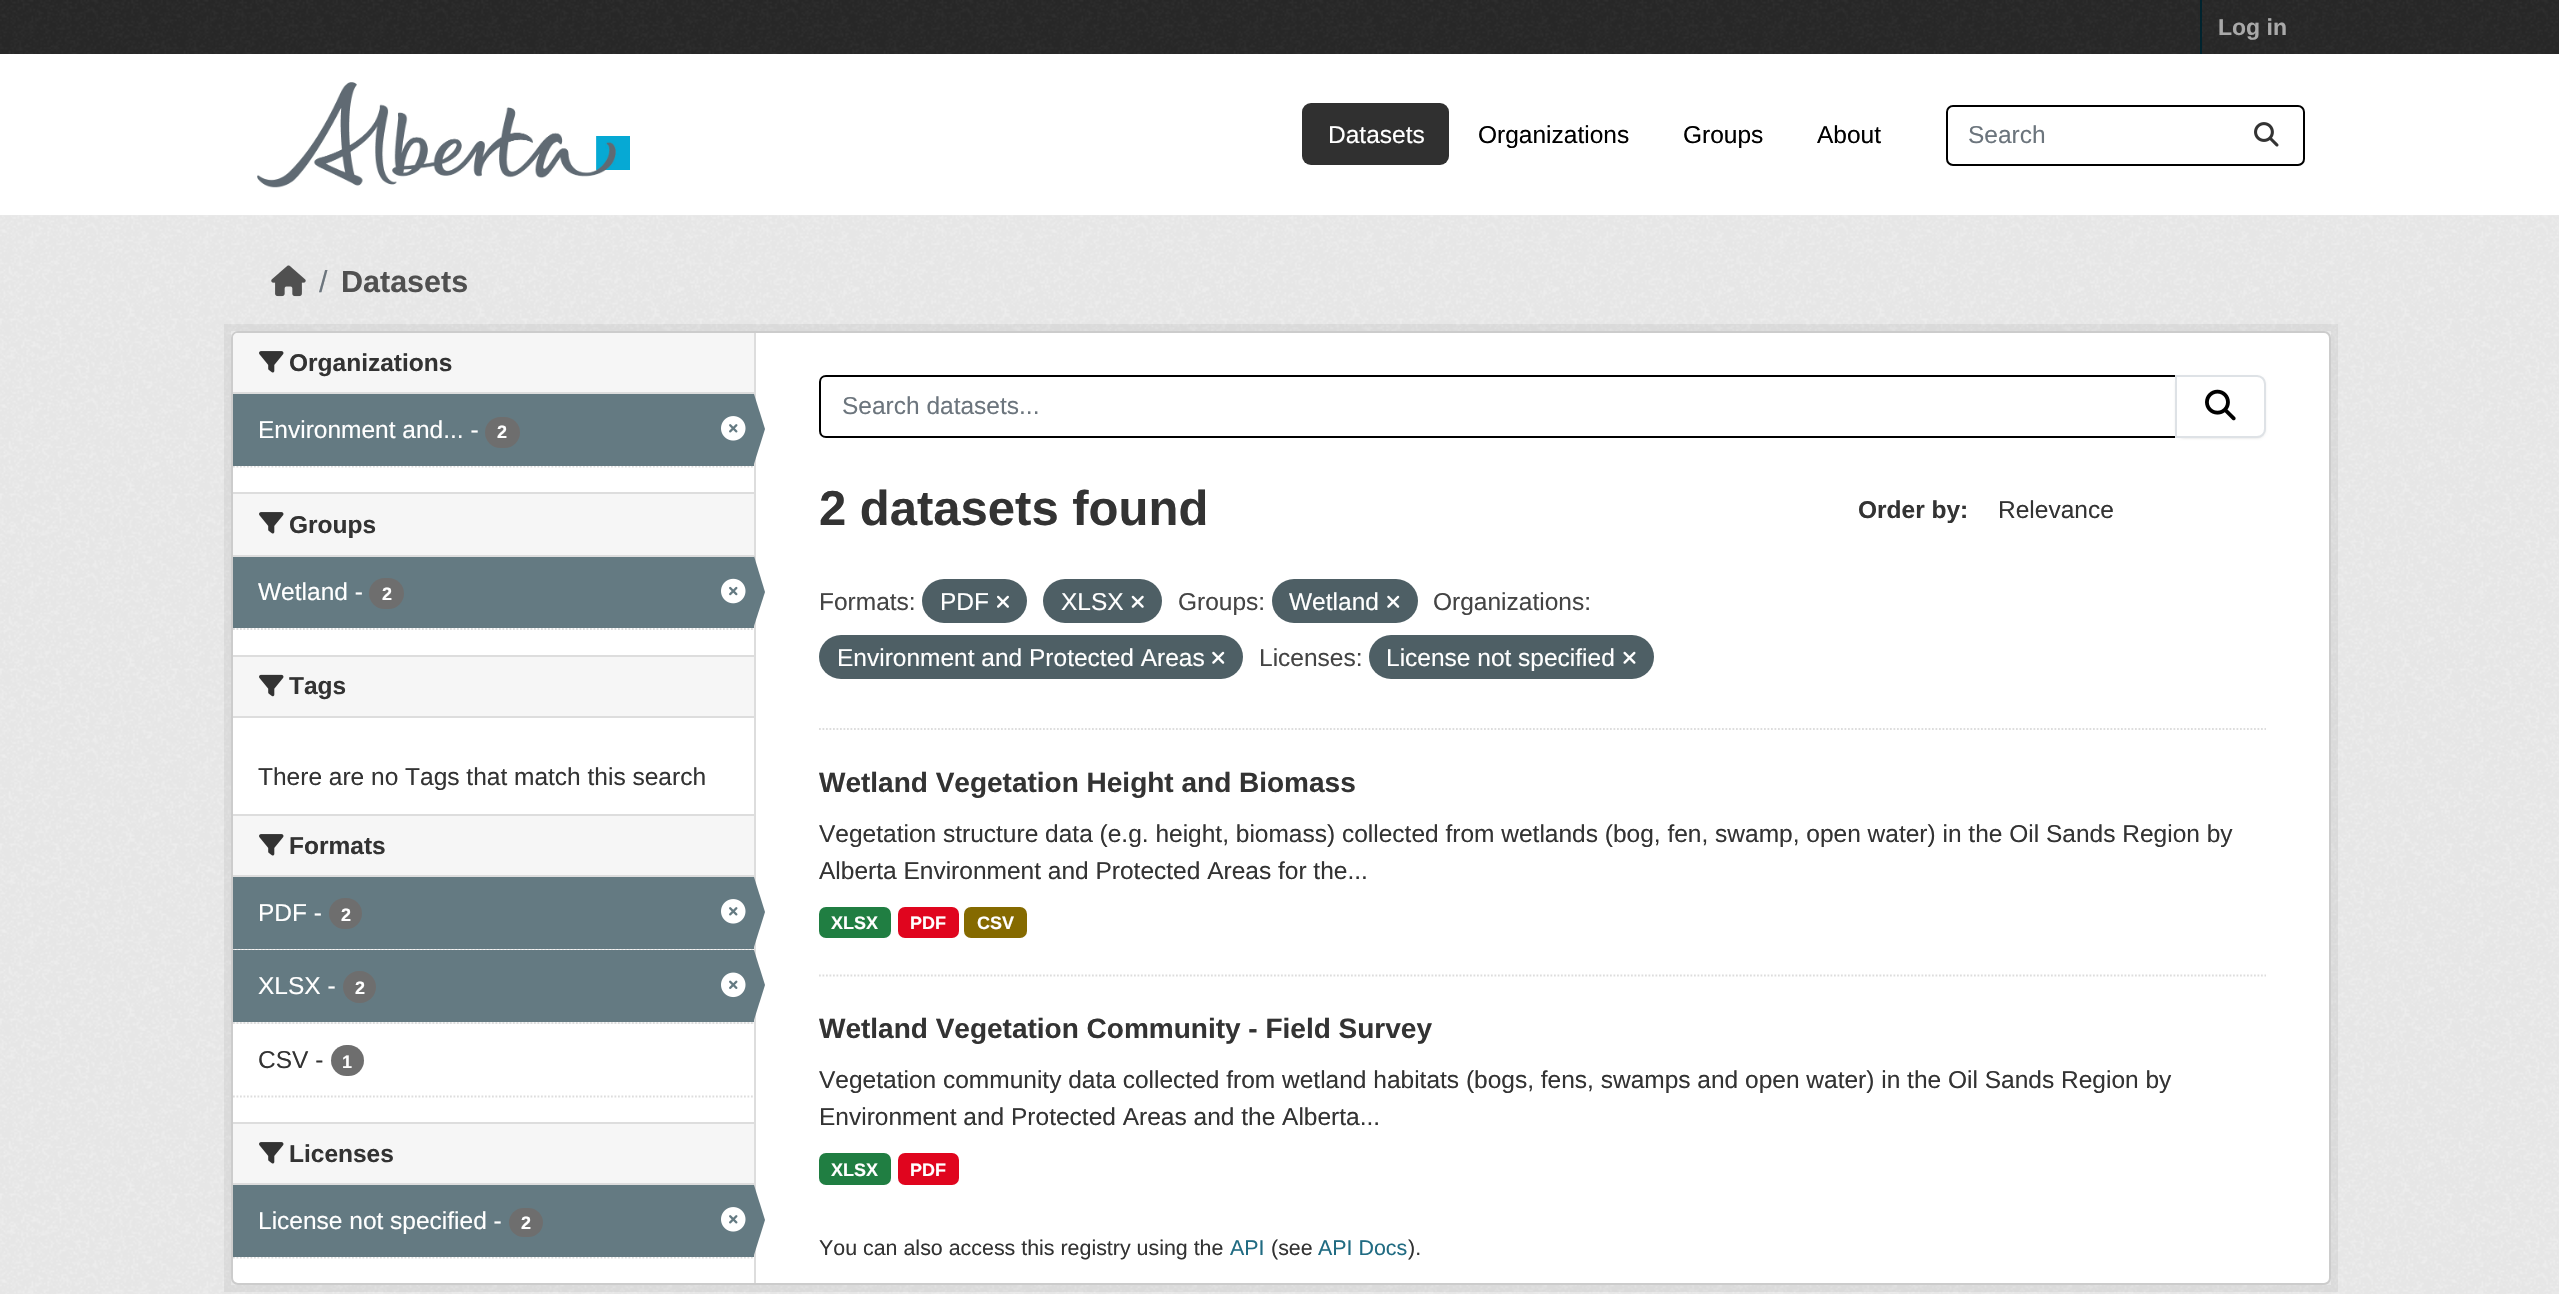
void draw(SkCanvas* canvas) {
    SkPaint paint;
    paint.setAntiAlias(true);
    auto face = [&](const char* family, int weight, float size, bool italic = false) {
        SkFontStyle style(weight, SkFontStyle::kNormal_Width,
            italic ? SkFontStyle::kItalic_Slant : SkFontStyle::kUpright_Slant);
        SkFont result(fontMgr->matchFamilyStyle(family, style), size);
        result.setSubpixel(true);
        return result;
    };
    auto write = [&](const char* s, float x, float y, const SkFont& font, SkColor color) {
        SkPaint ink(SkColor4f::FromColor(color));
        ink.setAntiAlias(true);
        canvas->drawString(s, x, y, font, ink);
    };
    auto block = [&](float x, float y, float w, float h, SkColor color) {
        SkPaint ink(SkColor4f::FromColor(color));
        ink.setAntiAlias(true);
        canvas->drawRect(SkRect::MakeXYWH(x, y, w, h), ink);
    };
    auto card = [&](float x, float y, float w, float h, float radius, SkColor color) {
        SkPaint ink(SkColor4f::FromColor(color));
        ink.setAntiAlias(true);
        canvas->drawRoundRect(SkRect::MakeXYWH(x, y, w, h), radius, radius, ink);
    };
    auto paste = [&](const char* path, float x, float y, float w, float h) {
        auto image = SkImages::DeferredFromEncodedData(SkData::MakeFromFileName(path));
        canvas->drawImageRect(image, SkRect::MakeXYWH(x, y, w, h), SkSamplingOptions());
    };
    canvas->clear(SkColorSetRGB(40, 40, 40));
    paste("pic1.png", 0, 0, 2558, 54);
    block(2200, 0, 2, 54, SkColorSetRGB(0, 35, 46));
    auto kFont1 = face("Liberation Sans", 700, 23);
    write("Log in", 2218, 35, kFont1, SkColorSetRGB(169, 169, 169));
    block(0, 54, 2559, 161, SK_ColorWHITE);
    paste("pic2.png", 257, 82, 373, 106);
    card(1302, 103, 147, 62, 9, SkColorSetRGB(48, 48, 48));
    auto kFont2 = face("Liberation Sans", 400, 24.5f);
    write("Datasets", 1328, 143, kFont2, SK_ColorWHITE);
    write("Organizations", 1478, 143, kFont2, SK_ColorBLACK);
    write("Groups", 1683, 143, kFont2, SK_ColorBLACK);
    write("About", 1817, 143, kFont2, SK_ColorBLACK);
    paint.setStyle(SkPaint::kStroke_Style);
    paint.setStrokeWidth(2);
    paint.setColor(SK_ColorBLACK);
    canvas->drawRoundRect(SkRect::MakeXYWH(1947, 106, 357, 59), 6, 6, paint);
    write("Search", 1968, 143, kFont2, SkColorSetRGB(108, 117, 125));
    paste("pic3.png", 2254, 122, 25, 25);
    block(0, 215, 2559, 1079, SkColorSetRGB(238, 238, 238));
    paste("pic4.png", 0, 215, 2559, 1079);
    paste("pic5.png", 271, 265, 35, 32);
    auto kFont3 = face("Liberation Sans", 400, 30.5f);
    write("/", 319, 292, kFont3, SkColorSetRGB(108, 117, 125));
    auto kFont4 = face("Liberation Sans", 700, 30.5f);
    write("Datasets", 341, 292, kFont4, SkColorSetRGB(80, 80, 80));
    paint.setStrokeWidth(7);
    paint.setColor(SkColorSetARGB(13, 0, 0, 0));
    canvas->drawRect(SkRect::MakeXYWH(227.5f, 327.5f, 2107, 961), paint);
    paint.setStyle(SkPaint::kFill_Style);
    paint.setColor(SK_ColorWHITE);
    canvas->drawRoundRect(SkRect::MakeXYWH(232, 332, 2098, 952), 6, 6, paint);
    paint.setStyle(SkPaint::kStroke_Style);
    paint.setStrokeWidth(2);
    paint.setColor(SkColorSetRGB(204, 204, 204));
    canvas->drawRoundRect(SkRect::MakeXYWH(232, 332, 2098, 952), 6, 6, paint);
    paint.setStyle(SkPaint::kFill_Style);
    paint.setColor(SkColorSetRGB(246, 246, 246));
    canvas->drawPath(SkPathBuilder().moveTo(238, 333).lineTo(754, 333).lineTo(754, 394).lineTo(233, 394).lineTo(233, 338).cubicTo(233, 335, 235, 333, 238, 333).close().detach(), paint);
    block(233, 392, 521, 2, SkColorSetRGB(221, 221, 221));
    paste("pic6.png", 259, 351, 25, 22);
    auto kFont5 = face("Liberation Sans", 700, 24.5f);
    write("Organizations", 289, 371, kFont5, SkColorSetRGB(51, 51, 51));
    paint.setStyle(SkPaint::kStroke_Style);
    paint.setStrokeWidth(1.8f);
    paint.setColor(SkColorSetRGB(221, 221, 221));
    paint.setPathEffect(SkDashPathEffect::Make({{1.75f, 1.75f}}, 0));
    canvas->drawPath(SkPathBuilder().moveTo(233, 466.5f).lineTo(754, 466.5f).detach(), paint);
    paint.setPathEffect(nullptr);
    block(233, 394, 521, 72, SkColorSetRGB(100, 122, 130));
    write("Environment and... -", 258, 438, kFont2, SK_ColorWHITE);
    card(485, 417, 35, 31, 15.5f, SkColorSetRGB(110, 110, 110));
    auto kFont6 = face("Liberation Sans", 700, 18);
    write("2", 497, 438, kFont6, SK_ColorWHITE);
    paste("pic7.png", 721, 416, 25, 25);
    block(754, 333, 2, 950, SkColorSetRGB(221, 221, 221));
    paint.setStyle(SkPaint::kFill_Style);
    paint.setColor(SkColorSetRGB(100, 122, 130));
    canvas->drawPath(SkPathBuilder().moveTo(754, 464).lineTo(754, 394).lineTo(765, 429).close().detach(), paint);
    block(233, 494, 521, 61, SkColorSetRGB(246, 246, 246));
    block(233, 492, 521, 2, SkColorSetRGB(221, 221, 221));
    block(233, 555, 521, 2, SkColorSetRGB(221, 221, 221));
    paste("pic6.png", 259, 512, 25, 22);
    write("Groups", 289, 533, kFont5, SkColorSetRGB(51, 51, 51));
    block(233, 557, 521, 71, SkColorSetRGB(100, 122, 130));
    write("Wetland -", 258, 600, kFont2, SK_ColorWHITE);
    card(369, 578, 35, 31, 15.5f, SkColorSetRGB(110, 110, 110));
    write("2", 382, 600, kFont6, SK_ColorWHITE);
    paste("pic8.png", 721, 578, 25, 26);
    canvas->drawPath(SkPathBuilder().moveTo(754, 626).lineTo(754, 556).lineTo(765, 592).close().detach(), paint);
    paint.setStyle(SkPaint::kStroke_Style);
    paint.setColor(SkColorSetRGB(221, 221, 221));
    paint.setPathEffect(SkDashPathEffect::Make({{1.75f, 1.75f}}, 0));
    canvas->drawPath(SkPathBuilder().moveTo(233, 629).lineTo(754, 629).detach(), paint);
    paint.setPathEffect(nullptr);
    block(233, 657, 521, 59, SkColorSetRGB(246, 246, 246));
    block(233, 655, 521, 2, SkColorSetRGB(221, 221, 221));
    block(233, 716, 521, 2, SkColorSetRGB(221, 221, 221));
    paste("pic9.png", 259, 674, 25, 23);
    write("Tags", 289, 694, kFont5, SkColorSetRGB(51, 51, 51));
    write("There are no Tags that match this search", 258, 785, kFont2, SkColorSetRGB(51, 51, 51));
    block(233, 816, 521, 59, SkColorSetRGB(246, 246, 246));
    block(233, 814, 521, 2, SkColorSetRGB(221, 221, 221));
    block(233, 875, 521, 2, SkColorSetRGB(221, 221, 221));
    paste("pic6.png", 259, 834, 25, 22);
    write("Formats", 289, 854, kFont5, SkColorSetRGB(51, 51, 51));
    block(234, 949, 520, 1, SkColorSetRGB(246, 246, 246));
    paint.setPathEffect(SkDashPathEffect::Make({{1.75f, 1.75f}}, 0));
    canvas->drawPath(SkPathBuilder().moveTo(233, 949.5f).lineTo(754, 949.5f).detach(), paint);
    paint.setPathEffect(nullptr);
    block(233, 877, 521, 72, SkColorSetRGB(100, 122, 130));
    write("PDF -", 258, 921, kFont2, SK_ColorWHITE);
    card(329, 898, 33, 31, 15.5f, SkColorSetRGB(110, 110, 110));
    write("2", 341, 921, kFont6, SK_ColorWHITE);
    paste("pic7.png", 721, 899, 25, 25);
    paint.setStyle(SkPaint::kFill_Style);
    paint.setColor(SkColorSetRGB(100, 122, 130));
    canvas->drawPath(SkPathBuilder().moveTo(754, 947).lineTo(754, 877).lineTo(765, 912).close().detach(), paint);
    block(233, 1022, 521, 2, SkColorSetRGB(246, 246, 246));
    paint.setStyle(SkPaint::kStroke_Style);
    paint.setColor(SkColorSetRGB(221, 221, 221));
    paint.setPathEffect(SkDashPathEffect::Make({{1.75f, 1.75f}}, 0));
    canvas->drawPath(SkPathBuilder().moveTo(233, 1023).lineTo(754, 1023).detach(), paint);
    paint.setPathEffect(nullptr);
    block(233, 950, 521, 72, SkColorSetRGB(100, 122, 130));
    write("XLSX -", 258, 994, kFont2, SK_ColorWHITE);
    card(343, 971, 33, 32, 16, SkColorSetRGB(110, 110, 110));
    write("2", 355, 994, kFont6, SK_ColorWHITE);
    paste("pic10.png", 721, 972, 25, 26);
    paint.setStyle(SkPaint::kFill_Style);
    paint.setColor(SkColorSetRGB(100, 122, 130));
    canvas->drawPath(SkPathBuilder().moveTo(754, 1020).lineTo(754, 950).lineTo(765, 985).close().detach(), paint);
    write("CSV -", 258, 1068, kFont2, SkColorSetRGB(51, 51, 51));
    card(331, 1045, 33, 31, 15.5f, SkColorSetRGB(110, 110, 110));
    write("1", 342, 1068, kFont6, SK_ColorWHITE);
    paint.setStyle(SkPaint::kStroke_Style);
    paint.setColor(SkColorSetRGB(221, 221, 221));
    paint.setPathEffect(SkDashPathEffect::Make({{1.75f, 1.75f}}, 0));
    canvas->drawPath(SkPathBuilder().moveTo(233, 1096.5f).lineTo(754, 1096.5f).detach(), paint);
    paint.setPathEffect(nullptr);
    block(233, 1124, 521, 59, SkColorSetRGB(246, 246, 246));
    block(233, 1122, 521, 2, SkColorSetRGB(221, 221, 221));
    block(233, 1183, 521, 2, SkColorSetRGB(221, 221, 221));
    paste("pic6.png", 259, 1142, 25, 22);
    write("Licenses", 289, 1162, kFont5, SkColorSetRGB(51, 51, 51));
    paint.setPathEffect(SkDashPathEffect::Make({{1.75f, 1.75f}}, 0));
    canvas->drawPath(SkPathBuilder().moveTo(233, 1257.5f).lineTo(754, 1257.5f).detach(), paint);
    paint.setPathEffect(nullptr);
    block(233, 1185, 521, 72, SkColorSetRGB(100, 122, 130));
    write("License not specified -", 258, 1229, kFont2, SK_ColorWHITE);
    card(509, 1208, 34, 29, 14.5f, SkColorSetRGB(110, 110, 110));
    write("2", 521, 1229, kFont6, SK_ColorWHITE);
    paste("pic7.png", 721, 1207, 25, 25);
    paint.setStyle(SkPaint::kFill_Style);
    paint.setColor(SkColorSetRGB(100, 122, 130));
    canvas->drawPath(SkPathBuilder().moveTo(754, 1255).lineTo(754, 1185).lineTo(765, 1220).close().detach(), paint);
    paint.setStyle(SkPaint::kStroke_Style);
    paint.setColor(SkColorSetRGB(221, 221, 221));
    paint.setPathEffect(SkDashPathEffect::Make({{1.75f, 1.75f}}, 0));
    canvas->drawPath(SkPathBuilder().moveTo(819, 729).lineTo(2266, 729).detach(), paint);
    paint.setPathEffect(nullptr);
    paint.setStrokeWidth(2);
    paint.setColor(SK_ColorBLACK);
    canvas->drawPath(SkPathBuilder().moveTo(826, 376).lineTo(2176, 376).lineTo(2176, 437).lineTo(826, 437).cubicTo(822.5f, 437, 820, 434.5f, 820, 431).lineTo(820, 382).cubicTo(820, 378.5f, 822.5f, 376, 826, 376).close().detach(), paint);
    write("Search datasets...", 842, 414, kFont2, SkColorSetRGB(108, 117, 125));
    paint.setStyle(SkPaint::kFill_Style);
    paint.setColor(SkColorSetARGB(18, 0, 0, 0));
    paint.setMaskFilter(SkMaskFilter::MakeBlur(kNormal_SkBlurStyle, 1));
    canvas->drawRoundRect(SkRect::MakeXYWH(2175, 376, 91, 63), 9, 9, paint);
    paint.setMaskFilter(nullptr);
    paint.setColor(SK_ColorWHITE);
    canvas->drawPath(SkPathBuilder().moveTo(2176, 376).lineTo(2257, 376).cubicTo(2261.5f, 376, 2265, 379.5f, 2265, 384).lineTo(2265, 429).cubicTo(2265, 433.5f, 2261.5f, 437, 2257, 437).lineTo(2176, 437).close().detach(), paint);
    paint.setStyle(SkPaint::kStroke_Style);
    paint.setColor(SkColorSetRGB(222, 226, 230));
    canvas->drawPath(SkPathBuilder().moveTo(2176, 376).lineTo(2257, 376).cubicTo(2261.5f, 376, 2265, 379.5f, 2265, 384).lineTo(2265, 429).cubicTo(2265, 433.5f, 2261.5f, 437, 2257, 437).lineTo(2176, 437).close().detach(), paint);
    paste("pic11.png", 2205, 389, 31, 32);
    auto kFont7 = face("Liberation Sans", 700, 49);
    write("2 datasets found", 819, 525, kFont7, SkColorSetRGB(51, 51, 51));
    write("Order by:", 1858, 518, kFont5, SkColorSetRGB(51, 51, 51));
    write("Relevance", 1998, 518, kFont2, SkColorSetRGB(51, 51, 51));
    write("Formats:", 819, 610, kFont2, SkColorSetRGB(68, 68, 68));
    card(922, 579, 105, 44, 22, SkColorSetRGB(78, 95, 101));
    write("PDF", 940, 610, kFont2, SK_ColorWHITE);
    paste("pic12.png", 997, 595, 12, 13);
    card(1043, 579, 119, 44, 22, SkColorSetRGB(78, 95, 101));
    write("XLSX", 1061, 610, kFont2, SK_ColorWHITE);
    paste("pic13.png", 1131, 595, 13, 13);
    write("Groups:", 1178, 610, kFont2, SkColorSetRGB(68, 68, 68));
    card(1272, 579, 146, 44, 22, SkColorSetRGB(78, 95, 101));
    write("Wetland", 1289, 610, kFont2, SK_ColorWHITE);
    paste("pic14.png", 1387, 595, 13, 13);
    write("Organizations:", 1433, 610, kFont2, SkColorSetRGB(68, 68, 68));
    card(819, 635, 424, 44, 22, SkColorSetRGB(78, 95, 101));
    write("Environment and Protected Areas", 837, 666, kFont2, SK_ColorWHITE);
    paste("pic14.png", 1212, 651, 13, 13);
    write("Licenses:", 1259, 666, kFont2, SkColorSetRGB(68, 68, 68));
    card(1369, 635, 285, 44, 22, SkColorSetRGB(78, 95, 101));
    write("License not specified", 1386, 666, kFont2, SK_ColorWHITE);
    paste("pic15.png", 1623, 651, 13, 13);
    paint.setStrokeWidth(1.8f);
    paint.setColor(SkColorSetRGB(221, 221, 221));
    paint.setPathEffect(SkDashPathEffect::Make({{1.75f, 1.75f}}, 0));
    canvas->drawPath(SkPathBuilder().moveTo(819, 975.5f).lineTo(2266, 975.5f).detach(), paint);
    paint.setPathEffect(nullptr);
    auto kFont8 = face("Liberation Sans", 700, 28);
    write("Wetland Vegetation Height and Biomass", 819, 792, kFont8, SkColorSetRGB(51, 51, 51));
    write("Vegetation structure data (e.g. height, biomass) collected from wetlands (bog, fen, swamp, open water) in the Oil Sands Region by", 819, 842, kFont2, SkColorSetRGB(51, 51, 51));
    write("Alberta Environment and Protected Areas for the...", 819, 879, kFont2, SkColorSetRGB(51, 51, 51));
    card(819, 907, 72, 31, 7, SkColorSetRGB(32, 126, 66));
    write("XLSX", 831, 929, kFont6, SK_ColorWHITE);
    card(898, 907, 61, 31, 7, SkColorSetRGB(224, 5, 30));
    write("PDF", 910, 929, kFont6, SK_ColorWHITE);
    card(964, 907, 63, 31, 7, SkColorSetRGB(133, 106, 0));
    write("CSV", 977, 929, kFont6, SK_ColorWHITE);
    write("Wetland Vegetation Community - Field Survey", 819, 1038, kFont8, SkColorSetRGB(51, 51, 51));
    write("Vegetation community data collected from wetland habitats (bogs, fens, swamps and open water) in the Oil Sands Region by", 819, 1088, kFont2, SkColorSetRGB(51, 51, 51));
    write("Environment and Protected Areas and the Alberta...", 819, 1125, kFont2, SkColorSetRGB(51, 51, 51));
    card(819, 1153, 72, 32, 7, SkColorSetRGB(32, 126, 66));
    write("XLSX", 831, 1176, kFont6, SK_ColorWHITE);
    card(898, 1153, 61, 32, 7, SkColorSetRGB(224, 5, 30));
    write("PDF", 910, 1176, kFont6, SK_ColorWHITE);
    auto kFont9 = face("Liberation Sans", 400, 21.4f);
    write("You can also access this registry using the", 819, 1255, kFont9, SkColorSetRGB(51, 51, 51));
    write("API", 1230, 1255, kFont9, SkColorSetRGB(32, 107, 130));
    write("(see", 1271, 1255, kFont9, SkColorSetRGB(51, 51, 51));
    write("API Docs", 1318, 1255, kFont9, SkColorSetRGB(32, 107, 130));
    write(").", 1408, 1255, kFont9, SkColorSetRGB(51, 51, 51));
}
